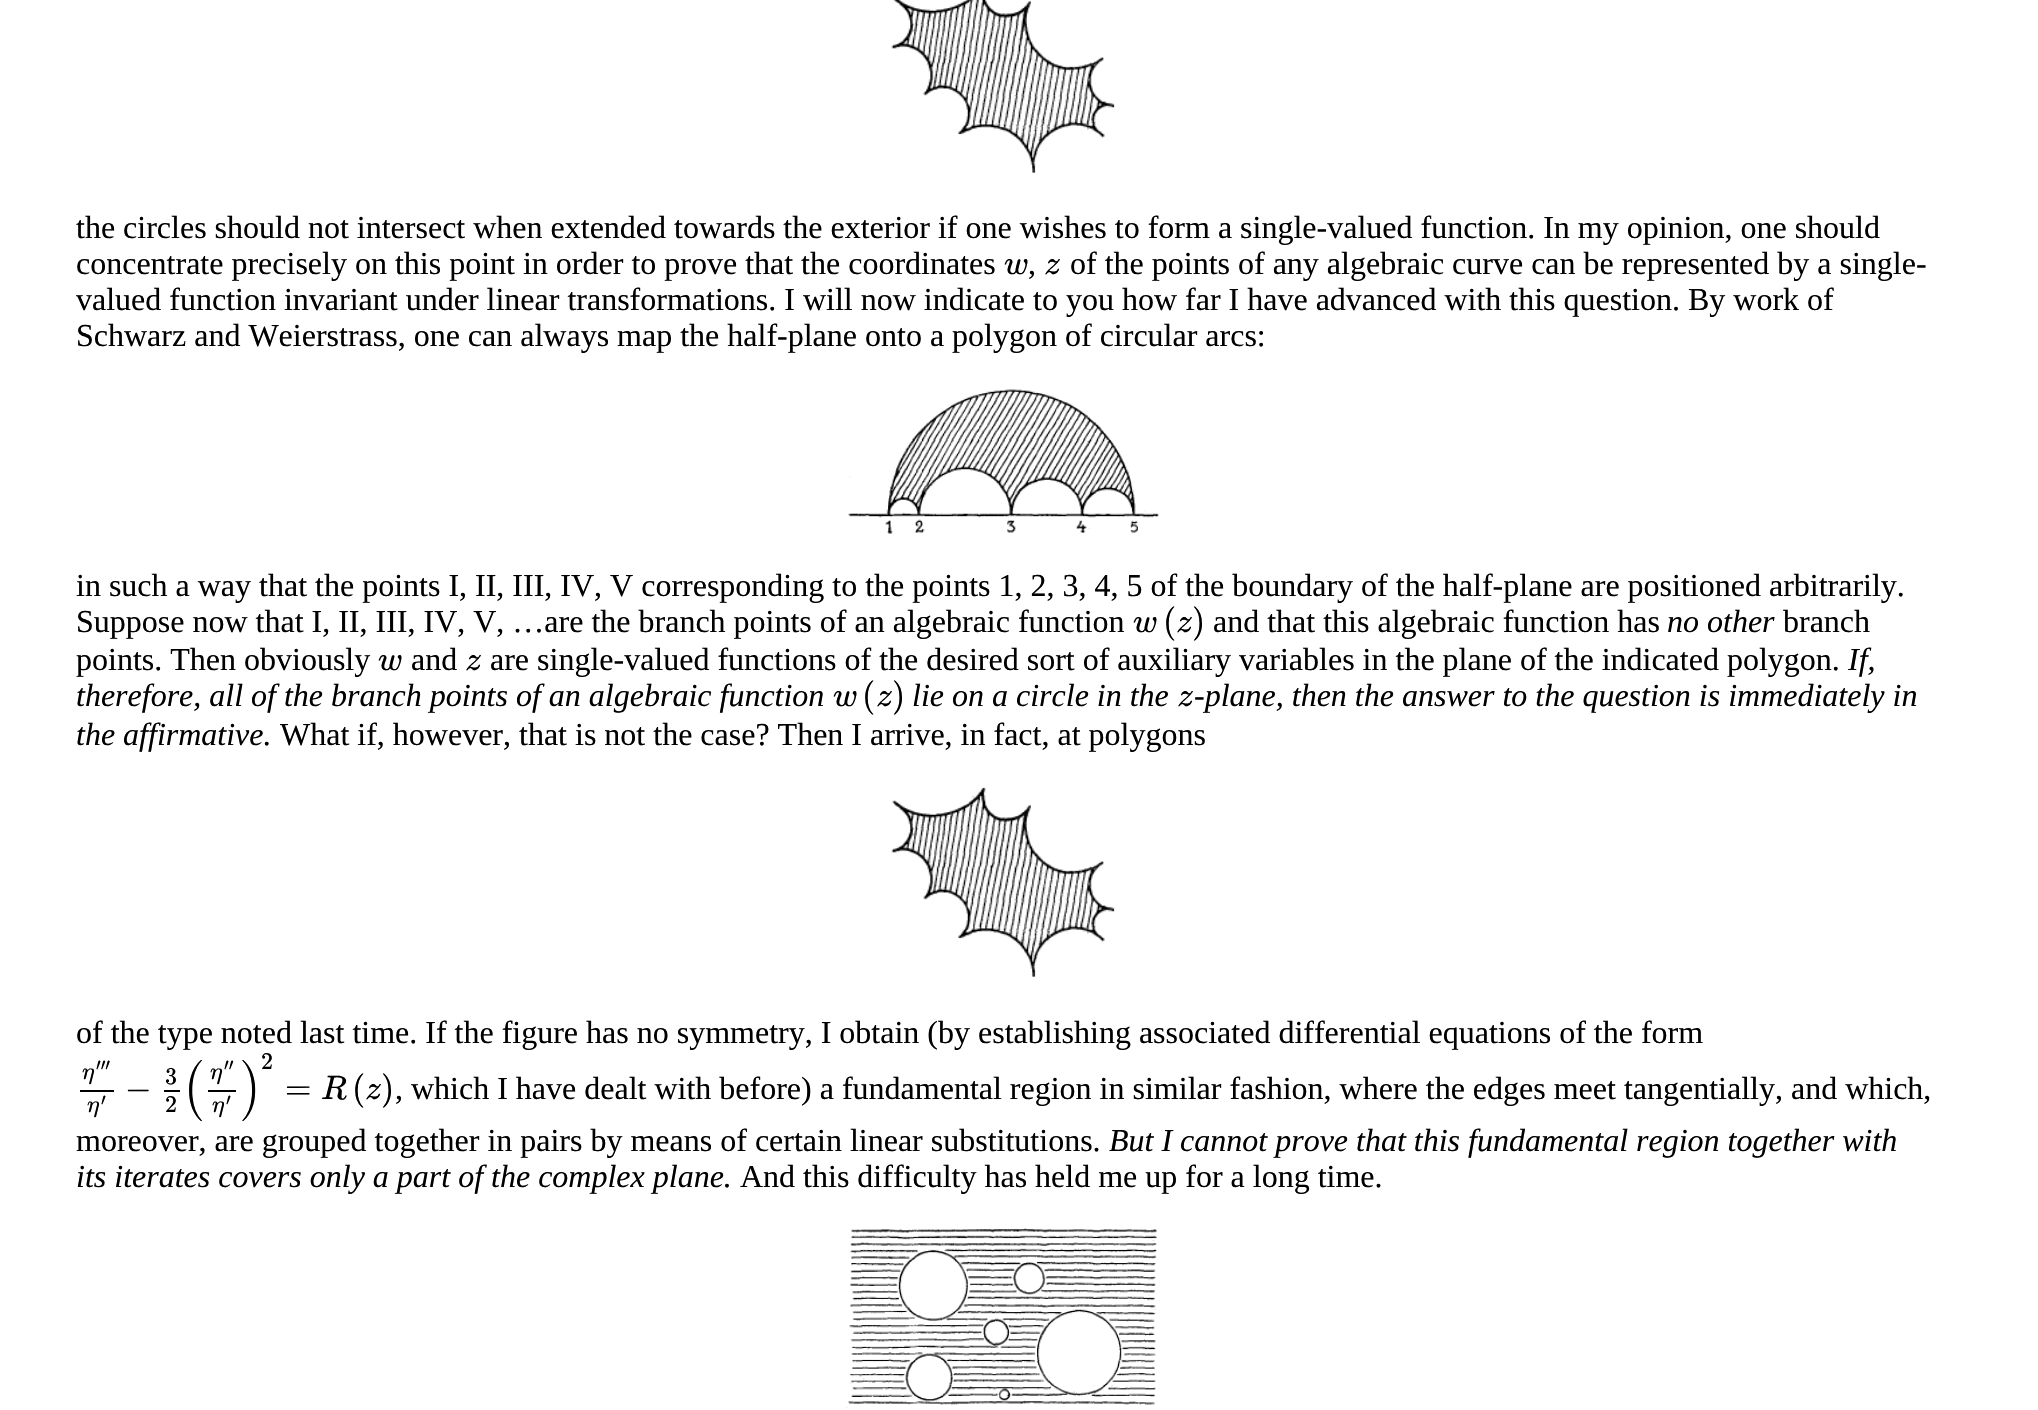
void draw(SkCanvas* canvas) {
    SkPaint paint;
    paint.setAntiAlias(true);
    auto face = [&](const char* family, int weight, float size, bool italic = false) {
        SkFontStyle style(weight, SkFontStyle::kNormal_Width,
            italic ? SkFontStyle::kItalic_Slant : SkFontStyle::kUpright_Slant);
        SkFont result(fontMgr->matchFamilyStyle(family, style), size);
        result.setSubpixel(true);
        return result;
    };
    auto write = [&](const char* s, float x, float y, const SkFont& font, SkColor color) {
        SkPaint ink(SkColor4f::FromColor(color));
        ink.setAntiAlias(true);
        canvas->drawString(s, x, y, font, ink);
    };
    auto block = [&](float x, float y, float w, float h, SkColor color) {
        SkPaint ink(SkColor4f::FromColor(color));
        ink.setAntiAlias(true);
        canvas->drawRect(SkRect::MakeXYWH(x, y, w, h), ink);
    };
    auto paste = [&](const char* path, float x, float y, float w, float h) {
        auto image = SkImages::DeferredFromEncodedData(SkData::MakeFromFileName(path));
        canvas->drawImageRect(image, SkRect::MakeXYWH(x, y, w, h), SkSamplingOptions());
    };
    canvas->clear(SK_ColorWHITE);
    paste("pic1.png", 891, 0, 224, 173);
    auto kFont1 = face("Liberation Serif", 400, 32);
    write("the circles should not intersect when extended towards the exterior if one wishes to form a single-valued function. In my opinion, one should", 76, 238, kFont1, SK_ColorBLACK);
    write("concentrate precisely on this point in order to prove that the coordinates", 76, 274, kFont1, SK_ColorBLACK);
    auto kFont2 = face("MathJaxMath", 400, 34, true);
    write("w", 1004, 274, kFont2, SK_ColorBLACK);
    write(",", 1028, 274, kFont1, SK_ColorBLACK);
    write("z", 1044, 274, kFont2, SK_ColorBLACK);
    write("of the points of any algebraic curve can be represented by a single-", 1070, 274, kFont1, SK_ColorBLACK);
    write("valued function invariant under linear transformations. I will now indicate to you how far I have advanced with this question. By work of", 76, 310, kFont1, SK_ColorBLACK);
    write("Schwarz and Weierstrass, one can always map the half-plane onto a polygon of circular arcs:", 76, 346, kFont1, SK_ColorBLACK);
    paste("pic2.png", 848, 389, 311, 145);
    write("in such a way that the points I, II, III, IV, V corresponding to the points 1, 2, 3, 4, 5 of the boundary of the half-plane are positioned arbitrarily.", 76, 596, kFont1, SK_ColorBLACK);
    write("Suppose now that I, II, III, IV, V, …are the branch points of an algebraic function", 76, 632, kFont1, SK_ColorBLACK);
    write("w", 1133, 632, kFont2, SK_ColorBLACK);
    auto kFont3 = face("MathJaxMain", 400, 34);
    write("(", 1163, 632, kFont3, SK_ColorBLACK);
    write("z", 1176, 632, kFont2, SK_ColorBLACK);
    write(")", 1192, 632, kFont3, SK_ColorBLACK);
    write("and that this algebraic function has", 1213, 632, kFont1, SK_ColorBLACK);
    auto kFont4 = face("Liberation Serif", 400, 32, true);
    write("no other", 1667, 632, kFont4, SK_ColorBLACK);
    write("branch", 1783, 632, kFont1, SK_ColorBLACK);
    write("points. Then obviously", 76, 670, kFont1, SK_ColorBLACK);
    write("If,", 1848, 670, kFont4, SK_ColorBLACK);
    write("therefore, all of the branch points of an algebraic function", 76, 706, kFont4, SK_ColorBLACK);
    write("w", 833, 706, kFont2, SK_ColorBLACK);
    write("(", 862, 706, kFont3, SK_ColorBLACK);
    write("z", 876, 706, kFont2, SK_ColorBLACK);
    write(")", 892, 706, kFont3, SK_ColorBLACK);
    write("lie on a circle in the", 912, 706, kFont4, SK_ColorBLACK);
    write("z", 1177, 706, kFont2, SK_ColorBLACK);
    write("-plane, then the answer to the question is immediately in", 1194, 706, kFont4, SK_ColorBLACK);
    write("the affirmative.", 76, 745, kFont4, SK_ColorBLACK);
    write("w", 378, 670, kFont2, SK_ColorBLACK);
    write("and", 411, 670, kFont1, SK_ColorBLACK);
    write("z", 465, 670, kFont2, SK_ColorBLACK);
    write("are single-valued functions of the desired sort of auxiliary variables in the plane of the indicated polygon.", 490, 670, kFont1, SK_ColorBLACK);
    write("What if, however, that is not the case? Then I arrive, in fact, at polygons", 280, 745, kFont1, SK_ColorBLACK);
    paste("pic3.png", 891, 787, 224, 190);
    write("of the type noted last time. If the figure has no symmetry, I obtain (by establishing associated differential equations of the form", 76, 1043, kFont1, SK_ColorBLACK);
    auto kFont5 = face("MathJaxMain", 400, 17);
    write("′′′", 96, 1070, kFont5, SK_ColorBLACK);
    auto kFont6 = face("MathJaxMath", 400, 24, true);
    write("η", 82, 1079, kFont6, SK_ColorBLACK);
    block(80, 1090, 34, 2, SK_ColorBLACK);
    write("′", 101, 1105, kFont5, SK_ColorBLACK);
    write("η", 87, 1112, kFont6, SK_ColorBLACK);
    write("−", 125, 1099, kFont3, SK_ColorBLACK);
    auto kFont7 = face("MathJaxMain", 400, 24);
    write("3", 165, 1084, kFont7, SK_ColorBLACK);
    block(164, 1090, 16, 2, SK_ColorBLACK);
    write("2", 165, 1112, kFont7, SK_ColorBLACK);
    auto kFont8 = face("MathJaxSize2", 400, 34);
    write("(", 183, 1099, kFont8, SK_ColorBLACK);
    write("′′", 224, 1070, kFont5, SK_ColorBLACK);
    write("η", 210, 1079, kFont6, SK_ColorBLACK);
    block(208, 1090, 28, 2, SK_ColorBLACK);
    write("′", 226, 1105, kFont5, SK_ColorBLACK);
    write("η", 212, 1112, kFont6, SK_ColorBLACK);
    write(")", 241, 1099, kFont8, SK_ColorBLACK);
    write("2", 261, 1069, kFont7, SK_ColorBLACK);
    write("=", 285, 1099, kFont3, SK_ColorBLACK);
    write("R", 321, 1099, kFont2, SK_ColorBLACK);
    write("(", 352, 1099, kFont3, SK_ColorBLACK);
    write("z", 365, 1099, kFont2, SK_ColorBLACK);
    write(")", 381, 1099, kFont3, SK_ColorBLACK);
    write(", which I have dealt with before) a fundamental region in similar fashion, where the edges meet tangentially, and which,", 395, 1099, kFont1, SK_ColorBLACK);
    write("moreover, are grouped together in pairs by means of certain linear substitutions.", 76, 1151, kFont1, SK_ColorBLACK);
    write("But I cannot prove that this fundamental region together with", 1109, 1151, kFont4, SK_ColorBLACK);
    write("its iterates covers only a part of the complex plane.", 76, 1187, kFont4, SK_ColorBLACK);
    write("And this difficulty has held me up for a long time.", 740, 1187, kFont1, SK_ColorBLACK);
    paste("pic4.png", 846, 1228, 311, 180);
}
